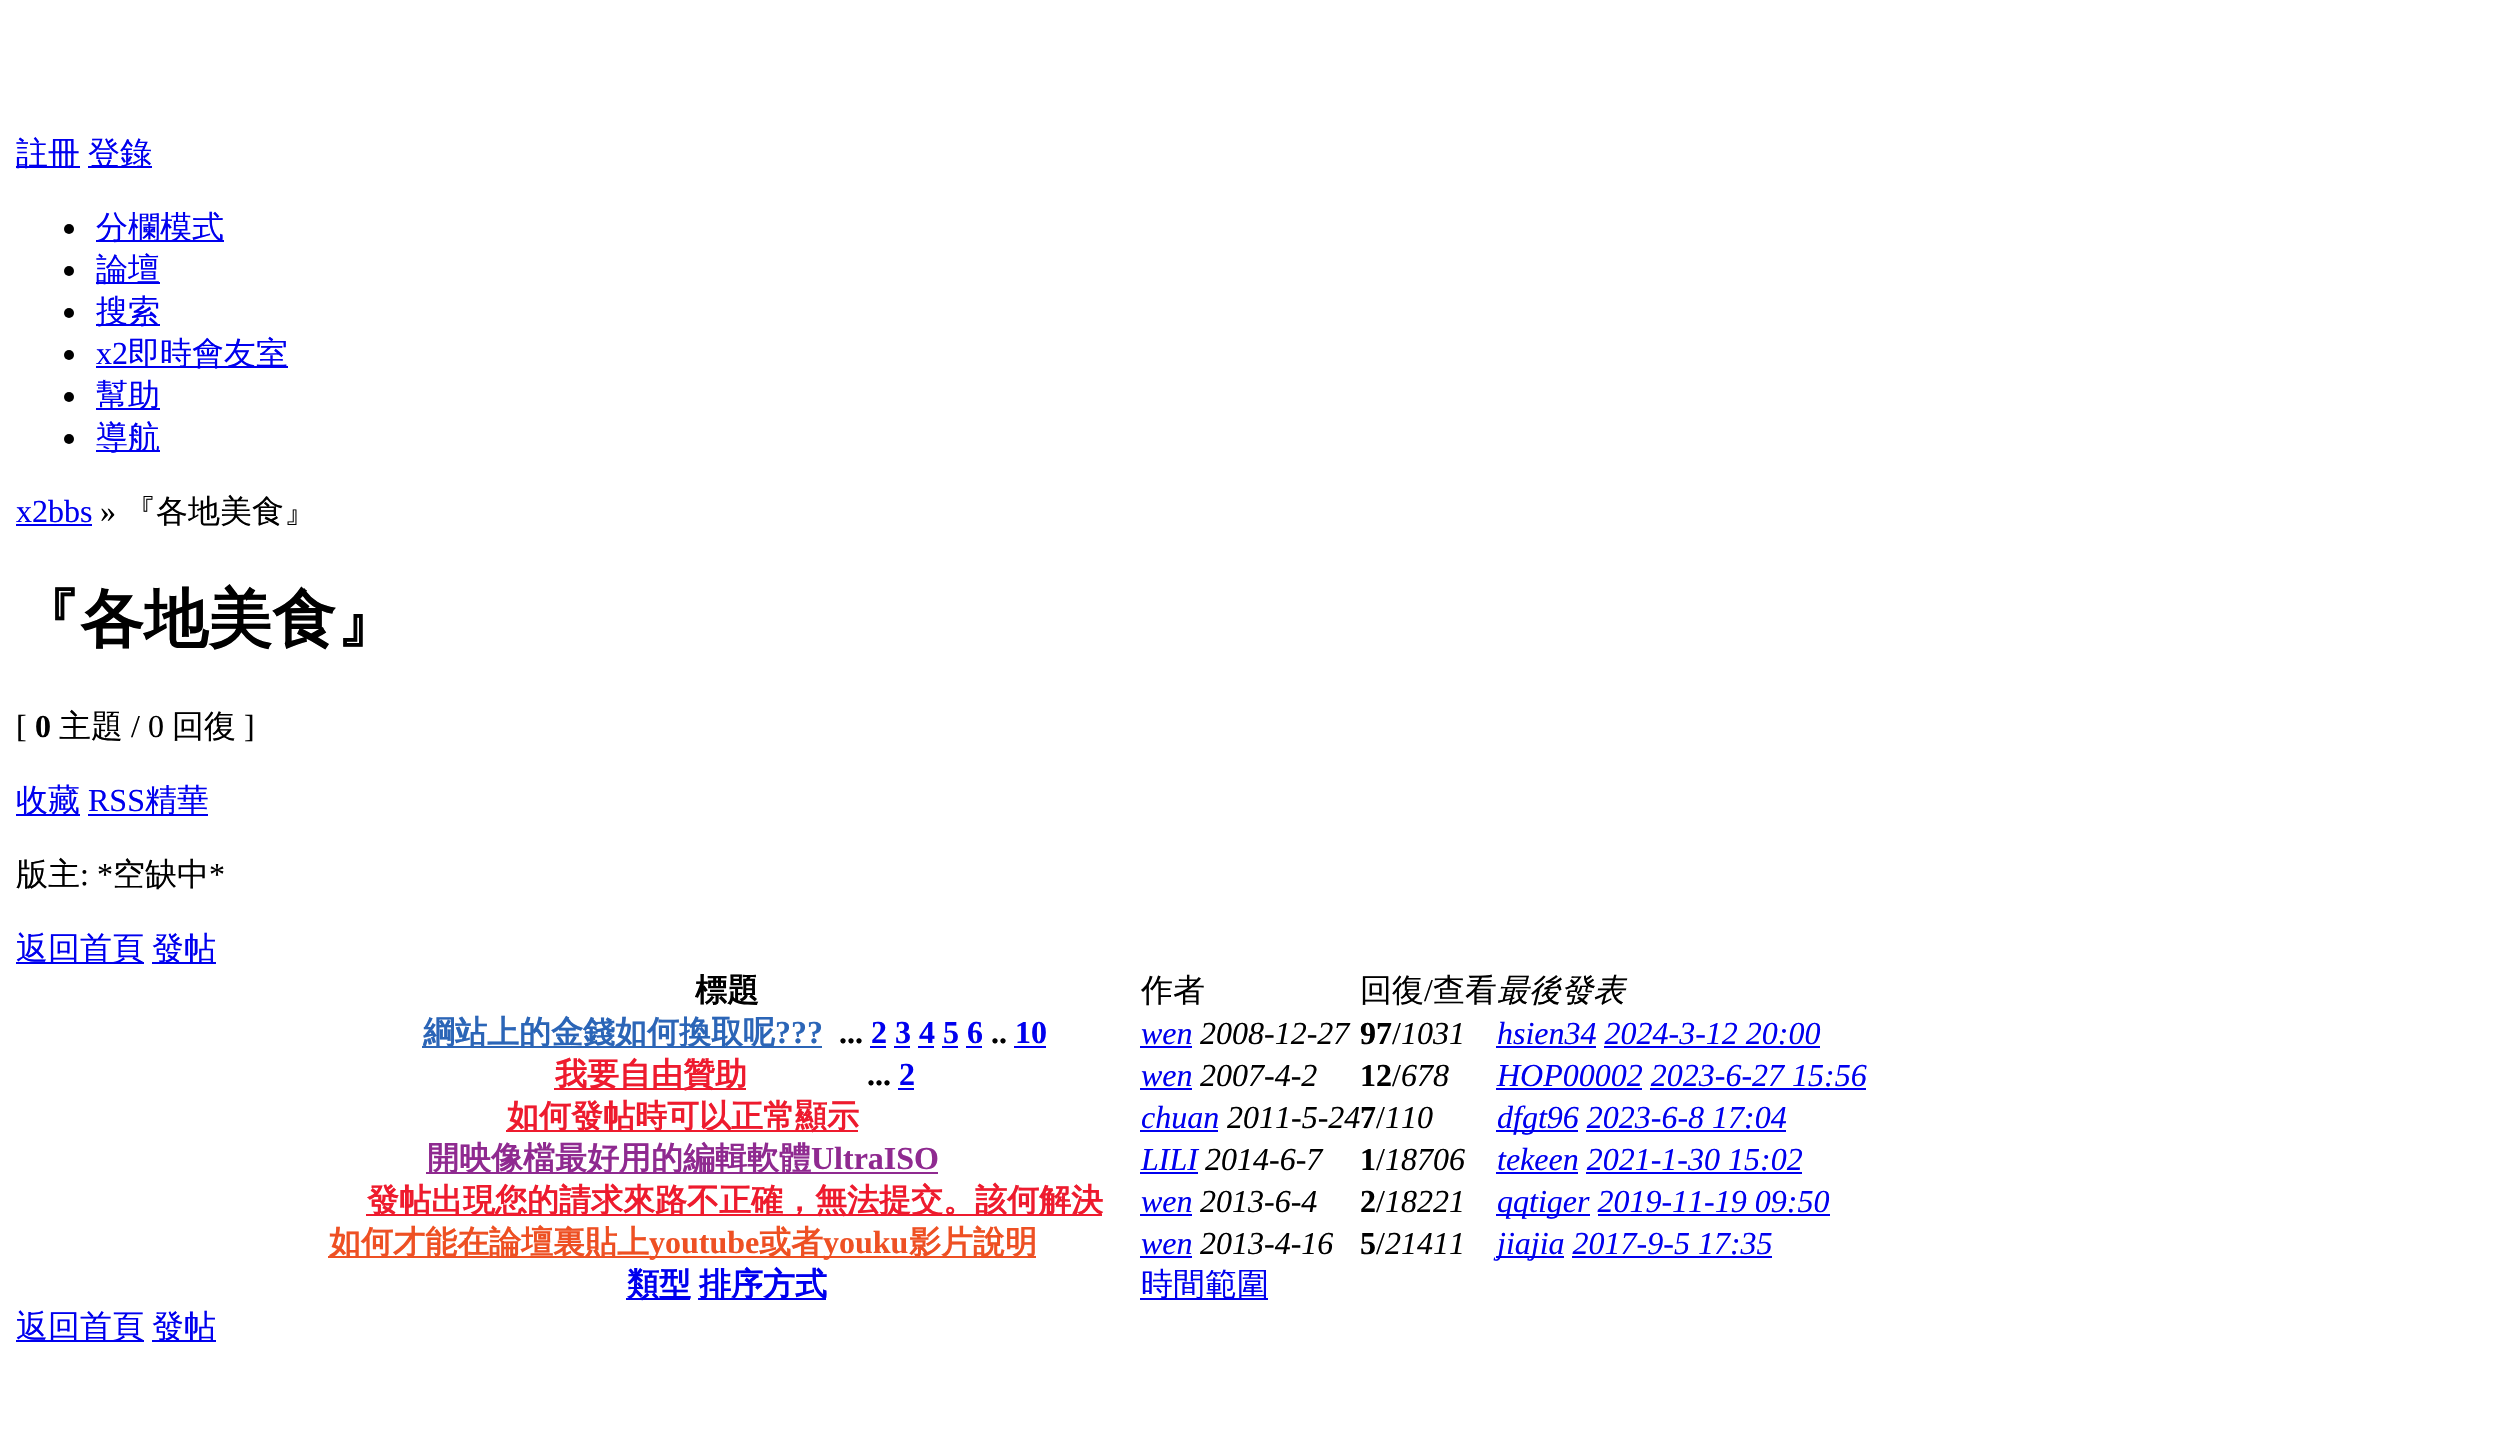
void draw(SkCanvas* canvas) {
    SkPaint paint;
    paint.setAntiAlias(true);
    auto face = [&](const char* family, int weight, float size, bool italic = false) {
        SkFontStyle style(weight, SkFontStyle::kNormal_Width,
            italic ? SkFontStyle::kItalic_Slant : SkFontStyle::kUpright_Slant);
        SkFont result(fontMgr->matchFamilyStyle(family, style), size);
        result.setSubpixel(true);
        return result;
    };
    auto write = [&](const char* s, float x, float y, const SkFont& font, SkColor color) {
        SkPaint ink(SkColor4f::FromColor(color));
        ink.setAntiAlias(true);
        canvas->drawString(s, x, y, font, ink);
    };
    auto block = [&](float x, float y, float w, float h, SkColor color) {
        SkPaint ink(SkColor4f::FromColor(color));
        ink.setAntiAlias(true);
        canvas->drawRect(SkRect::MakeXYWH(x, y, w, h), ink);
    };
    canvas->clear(SK_ColorWHITE);
    block(16, 166, 64, 2, SkColorSetRGB(0, 0, 238));
    auto kFont1 = face("WenQuanYi Zen Hei", 500, 32);
    write("註冊", 16, 164, kFont1, SkColorSetRGB(0, 0, 238));
    block(88, 166, 64, 2, SkColorSetRGB(0, 0, 238));
    write("登錄", 88, 164, kFont1, SkColorSetRGB(0, 0, 238));
    paint.setColor(SK_ColorBLACK);
    canvas->drawCircle(69, 229, 5, paint);
    block(96, 240, 128, 2, SkColorSetRGB(0, 0, 238));
    write("分欄模式", 96, 238, kFont1, SkColorSetRGB(0, 0, 238));
    canvas->drawCircle(69, 271, 5, paint);
    block(96, 282, 64, 2, SkColorSetRGB(0, 0, 238));
    write("論壇", 96, 280, kFont1, SkColorSetRGB(0, 0, 238));
    canvas->drawCircle(69, 313, 5, paint);
    block(96, 324, 64, 2, SkColorSetRGB(0, 0, 238));
    write("搜索", 96, 322, kFont1, SkColorSetRGB(0, 0, 238));
    canvas->drawCircle(69, 355, 5, paint);
    auto kFont2 = face("Liberation Serif", 400, 32);
    write("x2", 96, 364, kFont2, SkColorSetRGB(0, 0, 238));
    block(96, 366, 192, 2, SkColorSetRGB(0, 0, 238));
    write("即時會友室", 128, 364, kFont1, SkColorSetRGB(0, 0, 238));
    canvas->drawCircle(69, 397, 5, paint);
    block(96, 408, 64, 2, SkColorSetRGB(0, 0, 238));
    write("幫助", 96, 406, kFont1, SkColorSetRGB(0, 0, 238));
    canvas->drawCircle(69, 439, 5, paint);
    block(96, 450, 64, 2, SkColorSetRGB(0, 0, 238));
    write("導航", 96, 448, kFont1, SkColorSetRGB(0, 0, 238));
    write("x2bbs", 16, 522, kFont2, SkColorSetRGB(0, 0, 238));
    block(16, 524, 76, 2, SkColorSetRGB(0, 0, 238));
    write("»", 100, 522, kFont2, SK_ColorBLACK);
    write("『各地美食』", 124, 522, kFont1, SK_ColorBLACK);
    auto kFont3 = face("WenQuanYi Zen Hei", 700, 64);
    write("『各地美食』", 16, 641, kFont3, SK_ColorBLACK);
    write("[", 16, 737, kFont2, SK_ColorBLACK);
    auto kFont4 = face("Liberation Serif", 700, 32);
    write("0", 35, 737, kFont4, SK_ColorBLACK);
    write("主題", 59, 737, kFont1, SK_ColorBLACK);
    write("/ 0", 131, 737, kFont2, SK_ColorBLACK);
    write("回復", 172, 737, kFont1, SK_ColorBLACK);
    write("]", 244, 737, kFont2, SK_ColorBLACK);
    block(16, 814, 64, 2, SkColorSetRGB(0, 0, 238));
    write("收藏", 16, 811, kFont1, SkColorSetRGB(0, 0, 238));
    write("RSS", 88, 811, kFont2, SkColorSetRGB(0, 0, 238));
    block(88, 814, 120, 2, SkColorSetRGB(0, 0, 238));
    write("精華", 145, 811, kFont1, SkColorSetRGB(0, 0, 238));
    write("版主", 16, 885, kFont1, SK_ColorBLACK);
    write(": *", 80, 885, kFont2, SK_ColorBLACK);
    write("空缺中", 113, 885, kFont1, SK_ColorBLACK);
    write("*", 209, 885, kFont2, SK_ColorBLACK);
    block(16, 962, 128, 2, SkColorSetRGB(0, 0, 238));
    write("返回首頁", 16, 959, kFont1, SkColorSetRGB(0, 0, 238));
    block(152, 962, 64, 2, SkColorSetRGB(0, 0, 238));
    write("發帖", 152, 959, kFont1, SkColorSetRGB(0, 0, 238));
    auto kFont5 = face("WenQuanYi Zen Hei", 700, 32);
    write("標題", 695, 1001, kFont5, SK_ColorBLACK);
    write("作者", 1141, 1001, kFont1, SK_ColorBLACK);
    write("回復", 1360, 1001, kFont1, SK_ColorBLACK);
    write("/", 1424, 1001, kFont2, SK_ColorBLACK);
    write("查看", 1433, 1001, kFont1, SK_ColorBLACK);
    auto kFont6 = face("WenQuanYi Zen Hei", 500, 32, true);
    write("最後發表", 1497, 1001, kFont6, SK_ColorBLACK);
    block(422, 1046, 400, 2, SkColorSetRGB(43, 101, 183));
    write("綱站上的金錢如何換取呢", 423, 1043, kFont5, SkColorSetRGB(43, 101, 183));
    write("?\077?", 775, 1043, kFont4, SkColorSetRGB(43, 101, 183));
    write("...", 839, 1043, kFont4, SK_ColorBLACK);
    block(870, 1046, 16, 2, SkColorSetRGB(0, 0, 238));
    write("2 3 4 5 6", 871, 1043, kFont4, SkColorSetRGB(0, 0, 238));
    block(894, 1046, 16, 2, SkColorSetRGB(0, 0, 238));
    block(918, 1046, 16, 2, SkColorSetRGB(0, 0, 238));
    block(942, 1046, 16, 2, SkColorSetRGB(0, 0, 238));
    write("..", 991, 1043, kFont4, SK_ColorBLACK);
    block(966, 1046, 16, 2, SkColorSetRGB(0, 0, 238));
    block(1014, 1046, 32, 2, SkColorSetRGB(0, 0, 238));
    write("10", 1015, 1043, kFont4, SkColorSetRGB(0, 0, 238));
    auto kFont7 = face("Liberation Serif", 400, 32, true);
    write("wen", 1141, 1044, kFont7, SkColorSetRGB(0, 0, 238));
    block(1140, 1046, 52, 2, SkColorSetRGB(0, 0, 238));
    write("2008-12-27", 1200, 1044, kFont7, SK_ColorBLACK);
    write("97", 1360, 1044, kFont4, SK_ColorBLACK);
    write("/", 1392, 1044, kFont2, SK_ColorBLACK);
    write("1031", 1401, 1044, kFont7, SK_ColorBLACK);
    write("hsien34 2024-3-12 20:00", 1497, 1044, kFont7, SkColorSetRGB(0, 0, 238));
    block(1496, 1046, 100, 2, SkColorSetRGB(0, 0, 238));
    block(1604, 1046, 216, 2, SkColorSetRGB(0, 0, 238));
    block(554, 1088, 192, 2, SkColorSetRGB(238, 27, 46));
    write("我要自由贊助", 555, 1085, kFont5, SkColorSetRGB(238, 27, 46));
    write("...", 867, 1085, kFont4, SK_ColorBLACK);
    block(898, 1088, 16, 2, SkColorSetRGB(0, 0, 238));
    write("2", 899, 1085, kFont4, SkColorSetRGB(0, 0, 238));
    write("wen", 1141, 1086, kFont7, SkColorSetRGB(0, 0, 238));
    block(1140, 1088, 52, 2, SkColorSetRGB(0, 0, 238));
    write("2007-4-2", 1200, 1086, kFont7, SK_ColorBLACK);
    write("12", 1360, 1086, kFont4, SK_ColorBLACK);
    write("/", 1392, 1086, kFont2, SK_ColorBLACK);
    write("678", 1401, 1086, kFont7, SK_ColorBLACK);
    write("HOP00002 2023-6-27 15:56", 1497, 1086, kFont7, SkColorSetRGB(0, 0, 238));
    block(1496, 1088, 146, 2, SkColorSetRGB(0, 0, 238));
    block(1650, 1088, 216, 2, SkColorSetRGB(0, 0, 238));
    block(506, 1130, 352, 2, SkColorSetRGB(238, 27, 46));
    write("如何發帖時可以正常顯示", 507, 1127, kFont5, SkColorSetRGB(238, 27, 46));
    write("chuan", 1141, 1128, kFont7, SkColorSetRGB(0, 0, 238));
    block(1140, 1130, 78, 2, SkColorSetRGB(0, 0, 238));
    write("2011-5-24", 1227, 1128, kFont7, SK_ColorBLACK);
    write("7", 1360, 1128, kFont4, SK_ColorBLACK);
    write("/", 1376, 1128, kFont2, SK_ColorBLACK);
    write("110", 1385, 1128, kFont7, SK_ColorBLACK);
    block(1496, 1130, 82, 2, SkColorSetRGB(0, 0, 238));
    write("dfgt96 2023-6-8 17:04", 1497, 1128, kFont7, SkColorSetRGB(0, 0, 238));
    block(1586, 1130, 200, 2, SkColorSetRGB(0, 0, 238));
    block(426, 1172, 512, 2, SkColorSetRGB(143, 42, 144));
    write("開映像檔最好用的編輯軟體", 427, 1169, kFont5, SkColorSetRGB(143, 42, 144));
    write("UltraISO", 811, 1169, kFont4, SkColorSetRGB(143, 42, 144));
    write("LILI", 1141, 1170, kFont7, SkColorSetRGB(0, 0, 238));
    block(1140, 1172, 58, 2, SkColorSetRGB(0, 0, 238));
    write("2014-6-7", 1205, 1170, kFont7, SK_ColorBLACK);
    write("1", 1360, 1170, kFont4, SK_ColorBLACK);
    write("/", 1376, 1170, kFont2, SK_ColorBLACK);
    write("18706", 1385, 1170, kFont7, SK_ColorBLACK);
    write("tekeen 2021-1-30 15:02", 1497, 1170, kFont7, SkColorSetRGB(0, 0, 238));
    block(1496, 1172, 82, 2, SkColorSetRGB(0, 0, 238));
    block(1586, 1172, 216, 2, SkColorSetRGB(0, 0, 238));
    block(366, 1214, 736, 2, SkColorSetRGB(238, 27, 46));
    write("發帖出現您的請求來路不正確，無法提交。該何解決", 367, 1211, kFont5, SkColorSetRGB(238, 27, 46));
    write("wen", 1141, 1212, kFont7, SkColorSetRGB(0, 0, 238));
    block(1140, 1214, 52, 2, SkColorSetRGB(0, 0, 238));
    write("2013-6-4", 1200, 1212, kFont7, SK_ColorBLACK);
    write("2", 1360, 1212, kFont4, SK_ColorBLACK);
    write("/", 1376, 1212, kFont2, SK_ColorBLACK);
    write("18221", 1385, 1212, kFont7, SK_ColorBLACK);
    block(1496, 1214, 94, 2, SkColorSetRGB(0, 0, 238));
    write("qqtiger 2019-11-19 09:50", 1497, 1212, kFont7, SkColorSetRGB(0, 0, 238));
    block(1598, 1214, 232, 2, SkColorSetRGB(0, 0, 238));
    block(328, 1256, 708, 2, SkColorSetRGB(238, 80, 35));
    write("如何才能在論壇裏貼上", 329, 1253, kFont5, SkColorSetRGB(238, 80, 35));
    write("youtube", 649, 1253, kFont4, SkColorSetRGB(238, 80, 35));
    write("或者", 759, 1253, kFont5, SkColorSetRGB(238, 80, 35));
    write("youku", 823, 1253, kFont4, SkColorSetRGB(238, 80, 35));
    write("影片說明", 909, 1253, kFont5, SkColorSetRGB(238, 80, 35));
    write("wen", 1141, 1254, kFont7, SkColorSetRGB(0, 0, 238));
    block(1140, 1256, 52, 2, SkColorSetRGB(0, 0, 238));
    write("2013-4-16", 1200, 1254, kFont7, SK_ColorBLACK);
    write("5", 1360, 1254, kFont4, SK_ColorBLACK);
    write("/", 1376, 1254, kFont2, SK_ColorBLACK);
    write("21411", 1385, 1254, kFont7, SK_ColorBLACK);
    block(1496, 1256, 68, 2, SkColorSetRGB(0, 0, 238));
    write("jiajia 2017-9-5 17:35", 1497, 1254, kFont7, SkColorSetRGB(0, 0, 238));
    block(1572, 1256, 200, 2, SkColorSetRGB(0, 0, 238));
    block(626, 1298, 64, 2, SkColorSetRGB(0, 0, 238));
    write("類型", 627, 1295, kFont5, SkColorSetRGB(0, 0, 238));
    block(698, 1298, 128, 2, SkColorSetRGB(0, 0, 238));
    write("排序方式", 699, 1295, kFont5, SkColorSetRGB(0, 0, 238));
    block(1140, 1298, 128, 2, SkColorSetRGB(0, 0, 238));
    write("時間範圍", 1141, 1295, kFont1, SkColorSetRGB(0, 0, 238));
    block(16, 1340, 128, 2, SkColorSetRGB(0, 0, 238));
    write("返回首頁", 16, 1337, kFont1, SkColorSetRGB(0, 0, 238));
    block(152, 1340, 64, 2, SkColorSetRGB(0, 0, 238));
    write("發帖", 152, 1337, kFont1, SkColorSetRGB(0, 0, 238));
}
